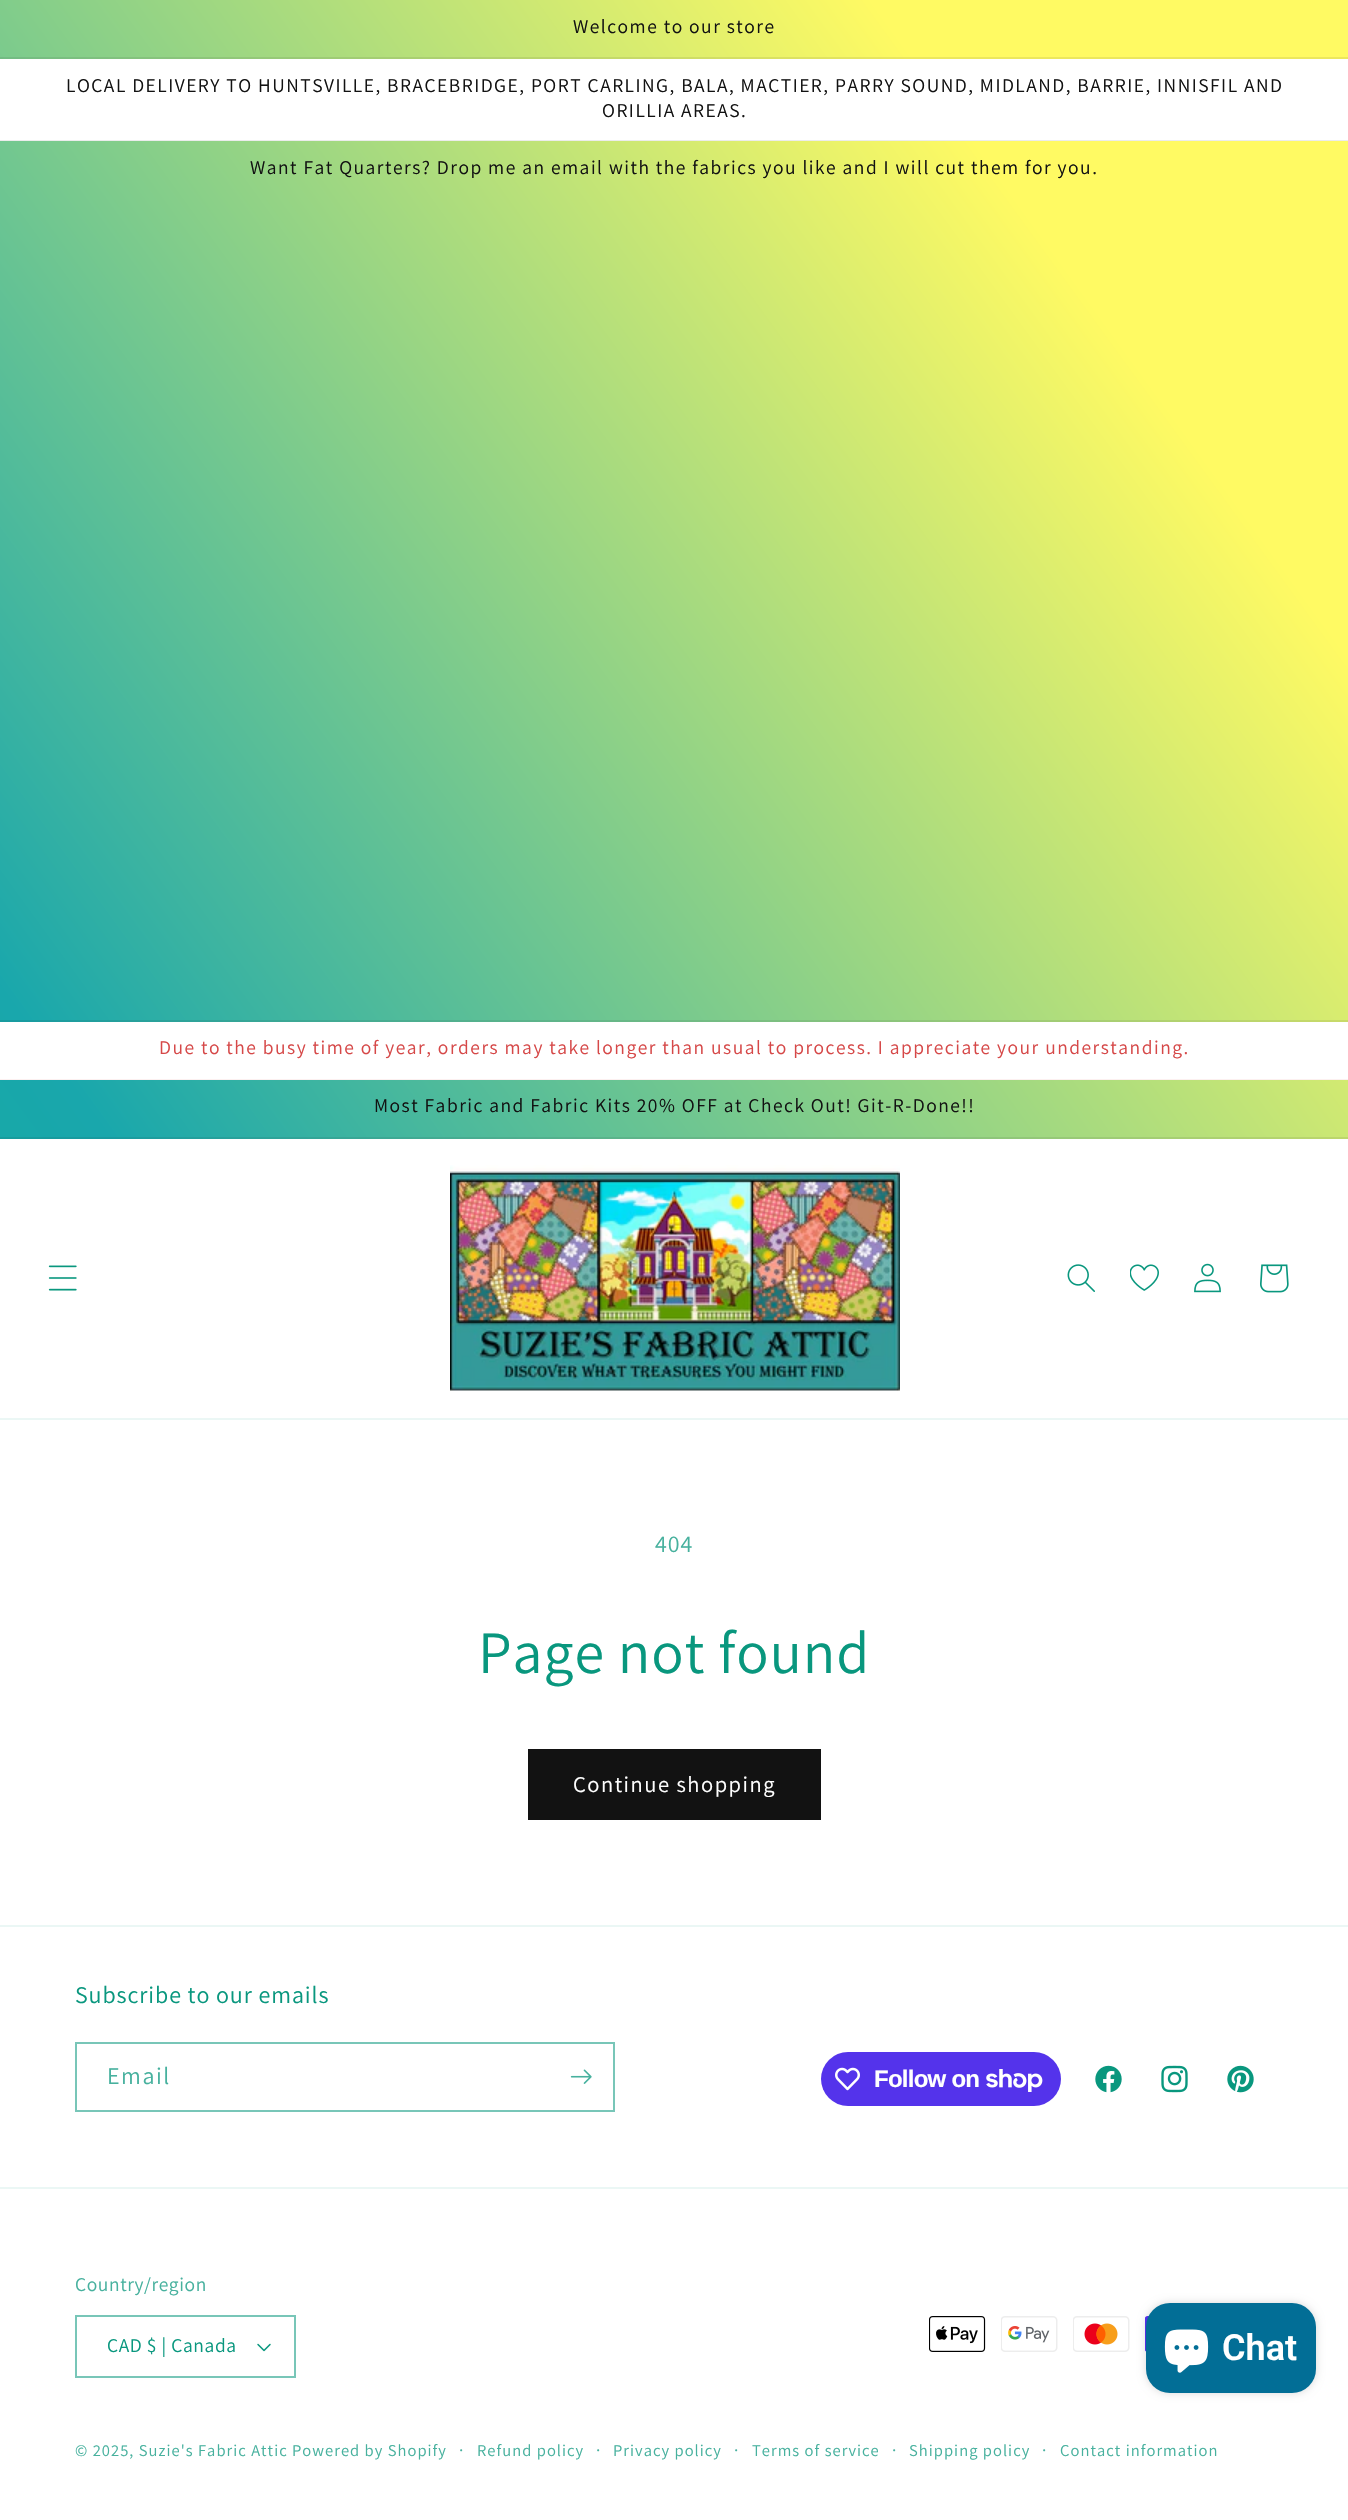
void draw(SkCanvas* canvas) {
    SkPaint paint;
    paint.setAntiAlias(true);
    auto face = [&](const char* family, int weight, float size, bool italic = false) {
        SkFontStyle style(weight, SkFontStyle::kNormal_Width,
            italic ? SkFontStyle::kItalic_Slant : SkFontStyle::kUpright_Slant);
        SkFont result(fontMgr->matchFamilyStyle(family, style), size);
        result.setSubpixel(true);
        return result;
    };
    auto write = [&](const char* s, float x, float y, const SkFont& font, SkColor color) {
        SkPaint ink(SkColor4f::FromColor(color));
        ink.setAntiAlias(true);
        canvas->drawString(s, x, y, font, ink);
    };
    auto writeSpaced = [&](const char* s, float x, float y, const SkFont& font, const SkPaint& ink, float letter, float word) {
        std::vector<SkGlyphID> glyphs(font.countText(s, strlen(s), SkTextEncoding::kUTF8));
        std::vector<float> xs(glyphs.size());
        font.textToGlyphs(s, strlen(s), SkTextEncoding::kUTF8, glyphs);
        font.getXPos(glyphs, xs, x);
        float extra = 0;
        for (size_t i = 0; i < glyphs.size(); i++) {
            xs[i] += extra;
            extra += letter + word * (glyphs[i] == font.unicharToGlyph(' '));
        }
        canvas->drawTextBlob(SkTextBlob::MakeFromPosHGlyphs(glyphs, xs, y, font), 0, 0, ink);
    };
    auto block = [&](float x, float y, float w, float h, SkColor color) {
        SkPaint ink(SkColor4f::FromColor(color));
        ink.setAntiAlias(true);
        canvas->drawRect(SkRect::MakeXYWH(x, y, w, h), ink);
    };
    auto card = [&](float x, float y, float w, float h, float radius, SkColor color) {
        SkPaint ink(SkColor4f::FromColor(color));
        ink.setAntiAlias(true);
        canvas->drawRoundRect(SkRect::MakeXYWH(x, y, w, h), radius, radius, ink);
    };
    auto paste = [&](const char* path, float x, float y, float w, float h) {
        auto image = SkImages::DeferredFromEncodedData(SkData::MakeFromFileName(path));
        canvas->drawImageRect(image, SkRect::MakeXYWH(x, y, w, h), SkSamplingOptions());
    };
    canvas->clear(SK_ColorWHITE);
    {
        const SkColor colors[] = {SkColorSetRGB(17, 172, 151), SkColorSetRGB(25, 167, 172), SkColorSetRGB(255, 250, 99)};
        const float stops[] = {0.14f, 0.35f, 0.85f};
        const SkPoint ends[] = {{-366, 2016}, {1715, 504}};
        paint.setShader(SkGradientShader::MakeLinear(ends, colors, stops, 3, SkTileMode::kClamp));
        paint.setAlpha(255);
    }
    canvas->drawRect(SkRect::MakeXYWH(0, 0, 1348, 57), paint);
    {
        const SkColor colors[] = {SkColorSetRGB(17, 160, 140), SkColorSetRGB(24, 155, 160), SkColorSetRGB(236, 231, 93)};
        const float stops[] = {0.14f, 0.35f, 0.85f};
        const SkPoint ends[] = {{-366, 2016}, {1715, 504}};
        paint.setShader(SkGradientShader::MakeLinear(ends, colors, stops, 3, SkTileMode::kClamp));
        paint.setAlpha(255);
    }
    canvas->drawRect(SkRect::MakeXYWH(0, 57, 1348, 2), paint);
    auto kFont1 = face("Assistant", 400, 19.5f);
    paint.setShader(nullptr);
    paint.setColor(SkColorSetRGB(18, 18, 18));
    writeSpaced("Welcome to our store", 573, 33, kFont1, paint, 1.5f, 0);
    block(0, 140, 1348, 1, SkColorSetRGB(236, 236, 236));
    writeSpaced("LOCAL DELIVERY TO HUNTSVILLE, BRACEBRIDGE, PORT CARLING, BALA, MACTIER, PARRY SOUND, MIDLAND, BARRIE, INNISFIL AND", 66, 92, kFont1, paint, 1.5f, 0);
    writeSpaced("ORILLIA AREAS.", 602, 117, kFont1, paint, 1.5f, 0);
    {
        const SkColor colors[] = {SkColorSetRGB(17, 172, 151), SkColorSetRGB(25, 167, 172), SkColorSetRGB(255, 250, 99)};
        const float stops[] = {0.14f, 0.35f, 0.85f};
        const SkPoint ends[] = {{-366, 2016}, {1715, 504}};
        paint.setShader(SkGradientShader::MakeLinear(ends, colors, stops, 3, SkTileMode::kClamp));
        paint.setAlpha(255);
    }
    canvas->drawRect(SkRect::MakeXYWH(0, 141, 1348, 879), paint);
    {
        const SkColor colors[] = {SkColorSetRGB(17, 160, 140), SkColorSetRGB(24, 155, 160), SkColorSetRGB(236, 231, 93)};
        const float stops[] = {0.14f, 0.35f, 0.85f};
        const SkPoint ends[] = {{-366, 2016}, {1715, 504}};
        paint.setShader(SkGradientShader::MakeLinear(ends, colors, stops, 3, SkTileMode::kClamp));
        paint.setAlpha(255);
    }
    canvas->drawRect(SkRect::MakeXYWH(0, 1020, 1348, 2), paint);
    paint.setShader(nullptr);
    paint.setColor(SkColorSetRGB(18, 18, 18));
    writeSpaced("Want Fat Quarters? Drop me an email with the fabrics you like and I will cut them for you.", 250, 174, kFont1, paint, 1.5f, 0);
    block(0, 1079, 1348, 1, SkColorSetRGB(252, 240, 240));
    paint.setColor(SkColorSetRGB(214, 72, 72));
    writeSpaced("Due to the busy time of year, orders may take longer than usual to process. I appreciate your understanding.", 159, 1054, kFont1, paint, 1.5f, 0);
    {
        const SkColor colors[] = {SkColorSetRGB(17, 172, 151), SkColorSetRGB(25, 167, 172), SkColorSetRGB(255, 250, 99)};
        const float stops[] = {0.14f, 0.35f, 0.85f};
        const SkPoint ends[] = {{-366, 2016}, {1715, 504}};
        paint.setShader(SkGradientShader::MakeLinear(ends, colors, stops, 3, SkTileMode::kClamp));
        paint.setAlpha(255);
    }
    canvas->drawRect(SkRect::MakeXYWH(0, 1080, 1348, 57), paint);
    {
        const SkColor colors[] = {SkColorSetRGB(17, 160, 140), SkColorSetRGB(24, 155, 160), SkColorSetRGB(236, 231, 93)};
        const float stops[] = {0.14f, 0.35f, 0.85f};
        const SkPoint ends[] = {{-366, 2016}, {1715, 504}};
        paint.setShader(SkGradientShader::MakeLinear(ends, colors, stops, 3, SkTileMode::kClamp));
        paint.setAlpha(255);
    }
    canvas->drawRect(SkRect::MakeXYWH(0, 1137, 1348, 2), paint);
    paint.setShader(nullptr);
    paint.setColor(SkColorSetRGB(18, 18, 18));
    writeSpaced("Most Fabric and Fabric Kits 20% OFF at Check Out! Git-R-Done!!", 374, 1112, kFont1, paint, 1.5f, 0);
    block(0, 1418, 1348, 2, SkColorSetRGB(235, 247, 245));
    paste("pic1.png", 48, 1265, 29, 26);
    paste("pic2.png", 450, 1165, 450, 226);
    paste("pic3.png", 1067, 1264, 28, 28);
    paste("pic4.png", 1130, 1264, 29, 27);
    paste("pic5.png", 1194, 1263, 27, 30);
    paste("pic6.png", 1260, 1264, 29, 29);
    auto kFont2 = face("Assistant", 400, 24);
    paint.setColor(SkColorSetRGB(71, 177, 158));
    writeSpaced("404", 655, 1552, kFont2, paint, 0.9f, 0);
    auto kFont3 = face("Assistant", 400, 60);
    paint.setColor(SkColorSetRGB(9, 151, 126));
    writeSpaced("Page not found", 478, 1673, kFont3, paint, 0.9f, 0);
    block(528, 1749, 293, 71, SkColorSetRGB(18, 18, 18));
    auto kFont4 = face("Assistant", 400, 22.5f);
    paint.setColor(SK_ColorWHITE);
    writeSpaced("Continue shopping", 573, 1792, kFont4, paint, 1.5f, 0);
    block(0, 1925, 1348, 2, SkColorSetRGB(235, 247, 245));
    paint.setColor(SkColorSetRGB(9, 151, 126));
    writeSpaced("Subscribe to our emails", 75, 2003, kFont2, paint, 0.9f, 0);
    paint.setStyle(SkPaint::kStroke_Style);
    paint.setStrokeWidth(2);
    paint.setColor(SkColorSetRGB(120, 198, 184));
    canvas->drawRect(SkRect::MakeXYWH(76, 2043, 538, 68), paint);
    paint.setStyle(SkPaint::kFill_Style);
    paint.setColor(SkColorSetRGB(71, 177, 158));
    writeSpaced("Email", 107, 2084, kFont2, paint, 1.5f, 0);
    paste("pic7.png", 570, 2069, 22, 15);
    card(821, 2052, 240, 54, 27, SkColorSetRGB(84, 51, 235));
    paste("pic8.png", 835, 2067, 25, 24);
    auto kFont5 = face("Liberation Sans", 700, 24);
    paint.setColor(SK_ColorWHITE);
    writeSpaced("Follow on", 874, 2087, kFont5, paint, -0.75f, 0);
    paste("pic9.png", 986, 2069, 57, 23);
    paste("pic10.png", 1095, 2065, 27, 28);
    paste("pic11.png", 1161, 2065, 27, 28);
    paste("pic12.png", 1227, 2065, 27, 28);
    block(0, 2187, 1348, 2, SkColorSetRGB(235, 247, 245));
    paint.setColor(SkColorSetRGB(71, 177, 158));
    writeSpaced("Country/region", 75, 2291, kFont1, paint, 0.6f, 0);
    paste("pic13.png", 257, 2343, 14, 9);
    paint.setStyle(SkPaint::kStroke_Style);
    paint.setColor(SkColorSetRGB(120, 198, 184));
    canvas->drawRect(SkRect::MakeXYWH(76, 2316, 219, 61), paint);
    paint.setStyle(SkPaint::kFill_Style);
    paint.setColor(SkColorSetRGB(9, 151, 126));
    writeSpaced("CAD $ | Canada", 107, 2352, kFont1, paint, 0.6f, 0);
    paste("pic14.png", 929, 2316, 57, 36);
    paste("pic15.png", 1001, 2316, 57, 36);
    paste("pic16.png", 1073, 2316, 57, 36);
    paste("pic17.png", 1145, 2316, 4, 36);
    auto kFont6 = face("Assistant", 400, 16.5f);
    paint.setColor(SkColorSetRGB(71, 177, 158));
    writeSpaced("© 2025, Suzie's Fabric Attic", 75, 2456, kFont6, paint, 1.05f, 0);
    writeSpaced("Powered by Shopify", 292, 2456, kFont6, paint, 1.05f, 0);
    auto kFont7 = face("Assistant", 400, 18);
    writeSpaced("·", 459, 2456, kFont7, paint, 1.05f, 0);
    writeSpaced("Refund policy", 477, 2456, kFont6, paint, 1.05f, 0);
    writeSpaced("·", 596, 2456, kFont7, paint, 1.05f, 0);
    writeSpaced("Privacy policy", 613, 2456, kFont6, paint, 1.05f, 0);
    writeSpaced("·", 734, 2456, kFont7, paint, 1.05f, 0);
    writeSpaced("Terms of service", 752, 2456, kFont6, paint, 1.05f, 0);
    writeSpaced("·", 892, 2456, kFont7, paint, 1.05f, 0);
    writeSpaced("Shipping policy", 909, 2456, kFont6, paint, 1.05f, 0);
    writeSpaced("·", 1042, 2456, kFont7, paint, 1.05f, 0);
    writeSpaced("Contact information", 1060, 2456, kFont6, paint, 1.05f, 0);
    paint.setColor(SkColorSetARGB(38, 0, 0, 0));
    paint.setMaskFilter(SkMaskFilter::MakeBlur(kNormal_SkBlurStyle, 4));
    canvas->drawRoundRect(SkRect::MakeXYWH(1146, 2303, 170, 90), 24, 24, paint);
    paint.setMaskFilter(nullptr);
    card(1146, 2303, 170, 90, 24, SkColorSetRGB(2, 110, 150));
    paste("pic18.png", 1164, 2329, 45, 44);
    auto kFont8 = face("Roboto", 600, 36);
    write("Chat", 1222, 2360, kFont8, SK_ColorWHITE);
}
